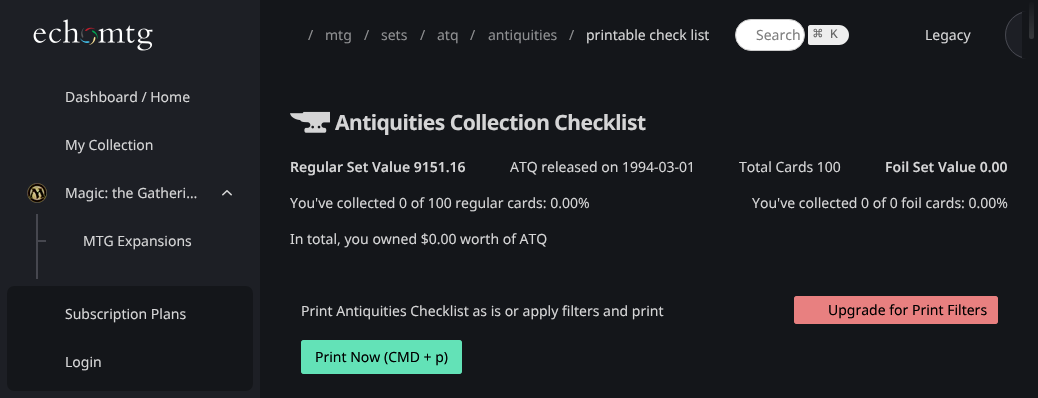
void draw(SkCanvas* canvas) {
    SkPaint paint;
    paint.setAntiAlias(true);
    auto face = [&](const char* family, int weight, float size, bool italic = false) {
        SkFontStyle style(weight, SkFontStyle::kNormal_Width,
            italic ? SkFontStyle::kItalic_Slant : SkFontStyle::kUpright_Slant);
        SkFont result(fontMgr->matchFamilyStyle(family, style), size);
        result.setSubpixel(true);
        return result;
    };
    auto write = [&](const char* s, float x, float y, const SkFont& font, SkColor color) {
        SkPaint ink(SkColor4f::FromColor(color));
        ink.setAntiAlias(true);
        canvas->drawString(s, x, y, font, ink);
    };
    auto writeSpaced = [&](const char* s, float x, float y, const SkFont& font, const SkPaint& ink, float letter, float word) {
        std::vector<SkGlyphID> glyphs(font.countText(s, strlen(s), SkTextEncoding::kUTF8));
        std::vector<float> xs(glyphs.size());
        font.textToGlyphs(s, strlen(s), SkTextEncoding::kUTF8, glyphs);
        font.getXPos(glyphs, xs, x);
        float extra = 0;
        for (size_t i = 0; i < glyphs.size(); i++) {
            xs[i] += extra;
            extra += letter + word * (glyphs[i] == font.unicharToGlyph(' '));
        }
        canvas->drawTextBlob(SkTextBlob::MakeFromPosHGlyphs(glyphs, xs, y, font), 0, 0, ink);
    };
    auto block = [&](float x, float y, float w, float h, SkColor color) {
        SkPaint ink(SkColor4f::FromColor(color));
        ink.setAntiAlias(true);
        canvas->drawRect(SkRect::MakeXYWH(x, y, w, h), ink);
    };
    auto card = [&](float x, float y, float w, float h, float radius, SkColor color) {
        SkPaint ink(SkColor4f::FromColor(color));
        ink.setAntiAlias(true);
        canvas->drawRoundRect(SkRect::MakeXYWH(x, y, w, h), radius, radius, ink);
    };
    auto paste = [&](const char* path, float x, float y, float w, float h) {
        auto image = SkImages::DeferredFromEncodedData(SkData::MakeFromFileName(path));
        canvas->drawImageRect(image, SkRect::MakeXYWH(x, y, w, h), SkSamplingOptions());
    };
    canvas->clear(SkColorSetRGB(20, 22, 26));
    block(0, 0, 260, 398, SkColorSetRGB(29, 31, 37));
    paste("pic1.png", 33, 19, 120, 32);
    auto kFont1 = face("Noto Sans", 400, 14);
    write("Dashboard / Home", 65, 102, kFont1, SkColorSetRGB(213, 213, 214));
    write("My Collection", 65, 150, kFont1, SkColorSetRGB(213, 213, 214));
    paste("pic2.png", 27, 183, 20, 20);
    write("Magic: the Gatheri…", 65, 198, kFont1, SkColorSetRGB(213, 213, 214));
    paste("pic3.png", 222, 190, 10, 6);
    block(36, 214, 2, 65, SkColorSetRGB(70, 71, 79));
    block(38, 240, 8, 2, SkColorSetRGB(70, 71, 79));
    write("MTG Expansions", 83, 246, kFont1, SkColorSetRGB(213, 213, 214));
    card(7, 286, 246, 105, 7, SkColorSetRGB(20, 22, 26));
    write("Subscription Plans", 65, 319, kFont1, SkColorSetRGB(213, 213, 214));
    write("Login", 65, 367, kFont1, SkColorSetRGB(213, 213, 214));
    card(1029, 2, 5, 37, 2.5f, SkColorSetRGB(67, 69, 72));
    write("/", 308, 40, kFont1, SkColorSetRGB(142, 143, 145));
    write("mtg", 325, 40, kFont1, SkColorSetRGB(142, 143, 145));
    write("/", 364, 40, kFont1, SkColorSetRGB(142, 143, 145));
    write("sets", 381, 40, kFont1, SkColorSetRGB(142, 143, 145));
    write("/", 420, 40, kFont1, SkColorSetRGB(142, 143, 145));
    write("atq", 437, 40, kFont1, SkColorSetRGB(142, 143, 145));
    write("/", 470, 40, kFont1, SkColorSetRGB(142, 143, 145));
    write("antiquities", 488, 40, kFont1, SkColorSetRGB(142, 143, 145));
    write("/", 569, 40, kFont1, SkColorSetRGB(142, 143, 145));
    write("printable check list", 586, 40, kFont1, SkColorSetRGB(213, 213, 214));
    paint.setColor(SK_ColorWHITE);
    canvas->drawRoundRect(SkRect::MakeXYWH(735.5f, 19.5f, 69, 31), 15.5f, 15.5f, paint);
    paint.setStyle(SkPaint::kStroke_Style);
    paint.setStrokeWidth(1);
    paint.setColor(SkColorSetRGB(204, 204, 204));
    canvas->drawRoundRect(SkRect::MakeXYWH(735.5f, 19.5f, 69, 31), 15.5f, 15.5f, paint);
    write("Search", 756, 40, kFont1, SkColorSetRGB(128, 128, 128));
    paint.setStyle(SkPaint::kFill_Style);
    paint.setColor(SkColorSetRGB(238, 238, 238));
    canvas->drawPath(SkPathBuilder().moveTo(810, 25).lineTo(839, 25).cubicTo(844.5f, 25, 849, 29.5f, 849, 35).cubicTo(849, 40.5f, 844.5f, 45, 839, 45).lineTo(810, 45).cubicTo(809, 45, 808, 44, 808, 43).lineTo(808, 27).cubicTo(808, 26, 809, 25, 810, 25).close().detach(), paint);
    auto kFont2 = face("DejaVu Sans Mono", 400, 16);
    write("⌘", 813, 39, kFont2, SkColorSetRGB(102, 102, 102));
    auto kFont3 = face("Liberation Mono", 400, 13);
    write("K", 830, 38, kFont3, SkColorSetRGB(102, 102, 102));
    write("Legacy", 925, 40, kFont1, SkColorSetRGB(213, 213, 214));
    paint.setColor(SkColorSetRGB(29, 31, 37));
    canvas->drawPath(SkPathBuilder().moveTo(1029, 11).lineTo(1022, 11).lineTo(1022, 59).lineTo(1029, 59).cubicTo(1015.5f, 59, 1005, 48.5f, 1005, 35).cubicTo(1005, 21.5f, 1015.5f, 11, 1029, 11).close().detach(), paint);
    {
        const SkColor colors[] = {SkColorSetRGB(20, 22, 26), SkColorSetARGB(189, 20, 22, 26), SkColorSetARGB(138, 20, 22, 26), SkColorSetARGB(97, 20, 22, 26), SkColorSetARGB(71, 20, 22, 26), SkColorSetARGB(48, 20, 22, 26), SkColorSetARGB(31, 20, 22, 26), SkColorSetARGB(18, 20, 22, 26), SkColorSetARGB(10, 20, 22, 26), SkColorSetARGB(5, 20, 22, 26), SkColorSetARGB(3, 20, 22, 26), SkColorSetARGB(0, 20, 22, 26), SkColorSetARGB(0, 20, 22, 26)};
        const float stops[] = {0, 0.19f, 0.34f, 0.47f, 0.56f, 0.65f, 0.73f, 0.8f, 0.86f, 0.91f, 0.95f, 0.98f, 1};
        const SkPoint ends[] = {{649, 0}, {649, 70}};
        paint.setShader(SkGradientShader::MakeLinear(ends, colors, stops, 13, SkTileMode::kClamp));
        paint.setAlpha(255);
    }
    canvas->drawRect(SkRect::MakeXYWH(1029, 2, 5, 37), paint);
    canvas->save();
    canvas->clipRect(SkRect::MakeXYWH(276, 0, 746, 70));
    paint.setStyle(SkPaint::kStroke_Style);
    paint.setShader(nullptr);
    paint.setColor(SkColorSetRGB(70, 71, 79));
    canvas->drawRoundRect(SkRect::MakeXYWH(1005.5f, 11.5f, 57, 47), 23.5f, 23.5f, paint);
    canvas->restore();
    paste("pic4.png", 290, 111, 40, 22);
    auto kFont4 = face("Noto Sans", 700, 21);
    paint.setStyle(SkPaint::kFill_Style);
    paint.setColor(SkColorSetRGB(213, 213, 214));
    writeSpaced("Antiquities Collection Checklist", 335, 130, kFont4, paint, -0.5f, 0);
    auto kFont5 = face("Noto Sans", 600, 14);
    write("Regular Set Value 9151.16", 290, 172, kFont5, SkColorSetRGB(213, 213, 214));
    write("ATQ released on 1994-03-01", 510, 172, kFont1, SkColorSetRGB(213, 213, 214));
    write("Total Cards 100", 739, 172, kFont1, SkColorSetRGB(213, 213, 214));
    write("Foil Set Value 0.00", 885, 172, kFont5, SkColorSetRGB(213, 213, 214));
    write("You've collected 0 of 100 regular cards: 0.00%", 290, 208, kFont1, SkColorSetRGB(213, 213, 214));
    write("You've collected 0 of 0 foil cards: 0.00%", 752, 208, kFont1, SkColorSetRGB(213, 213, 214));
    write("In total, you owned $0.00 worth of ATQ", 290, 244, kFont1, SkColorSetRGB(213, 213, 214));
    write("Print Antiquities Checklist as is or apply filters and print", 301, 316, kFont1, SkColorSetRGB(213, 213, 214));
    card(794, 296, 204, 28, 3, SkColorSetRGB(232, 128, 128));
    paint.setStyle(SkPaint::kStroke_Style);
    paint.setColor(SkColorSetRGB(232, 128, 128));
    canvas->drawRoundRect(SkRect::MakeXYWH(794.5f, 296.5f, 203, 27), 2.5f, 2.5f, paint);
    write("Upgrade for Print Filters", 828, 315, kFont1, SK_ColorBLACK);
    card(301, 340, 161, 34, 3, SkColorSetRGB(99, 226, 183));
    paint.setColor(SkColorSetRGB(99, 226, 183));
    canvas->drawRoundRect(SkRect::MakeXYWH(301.5f, 340.5f, 160, 33), 2.5f, 2.5f, paint);
    write("Print Now (CMD + p)", 315, 362, kFont1, SK_ColorBLACK);
}
